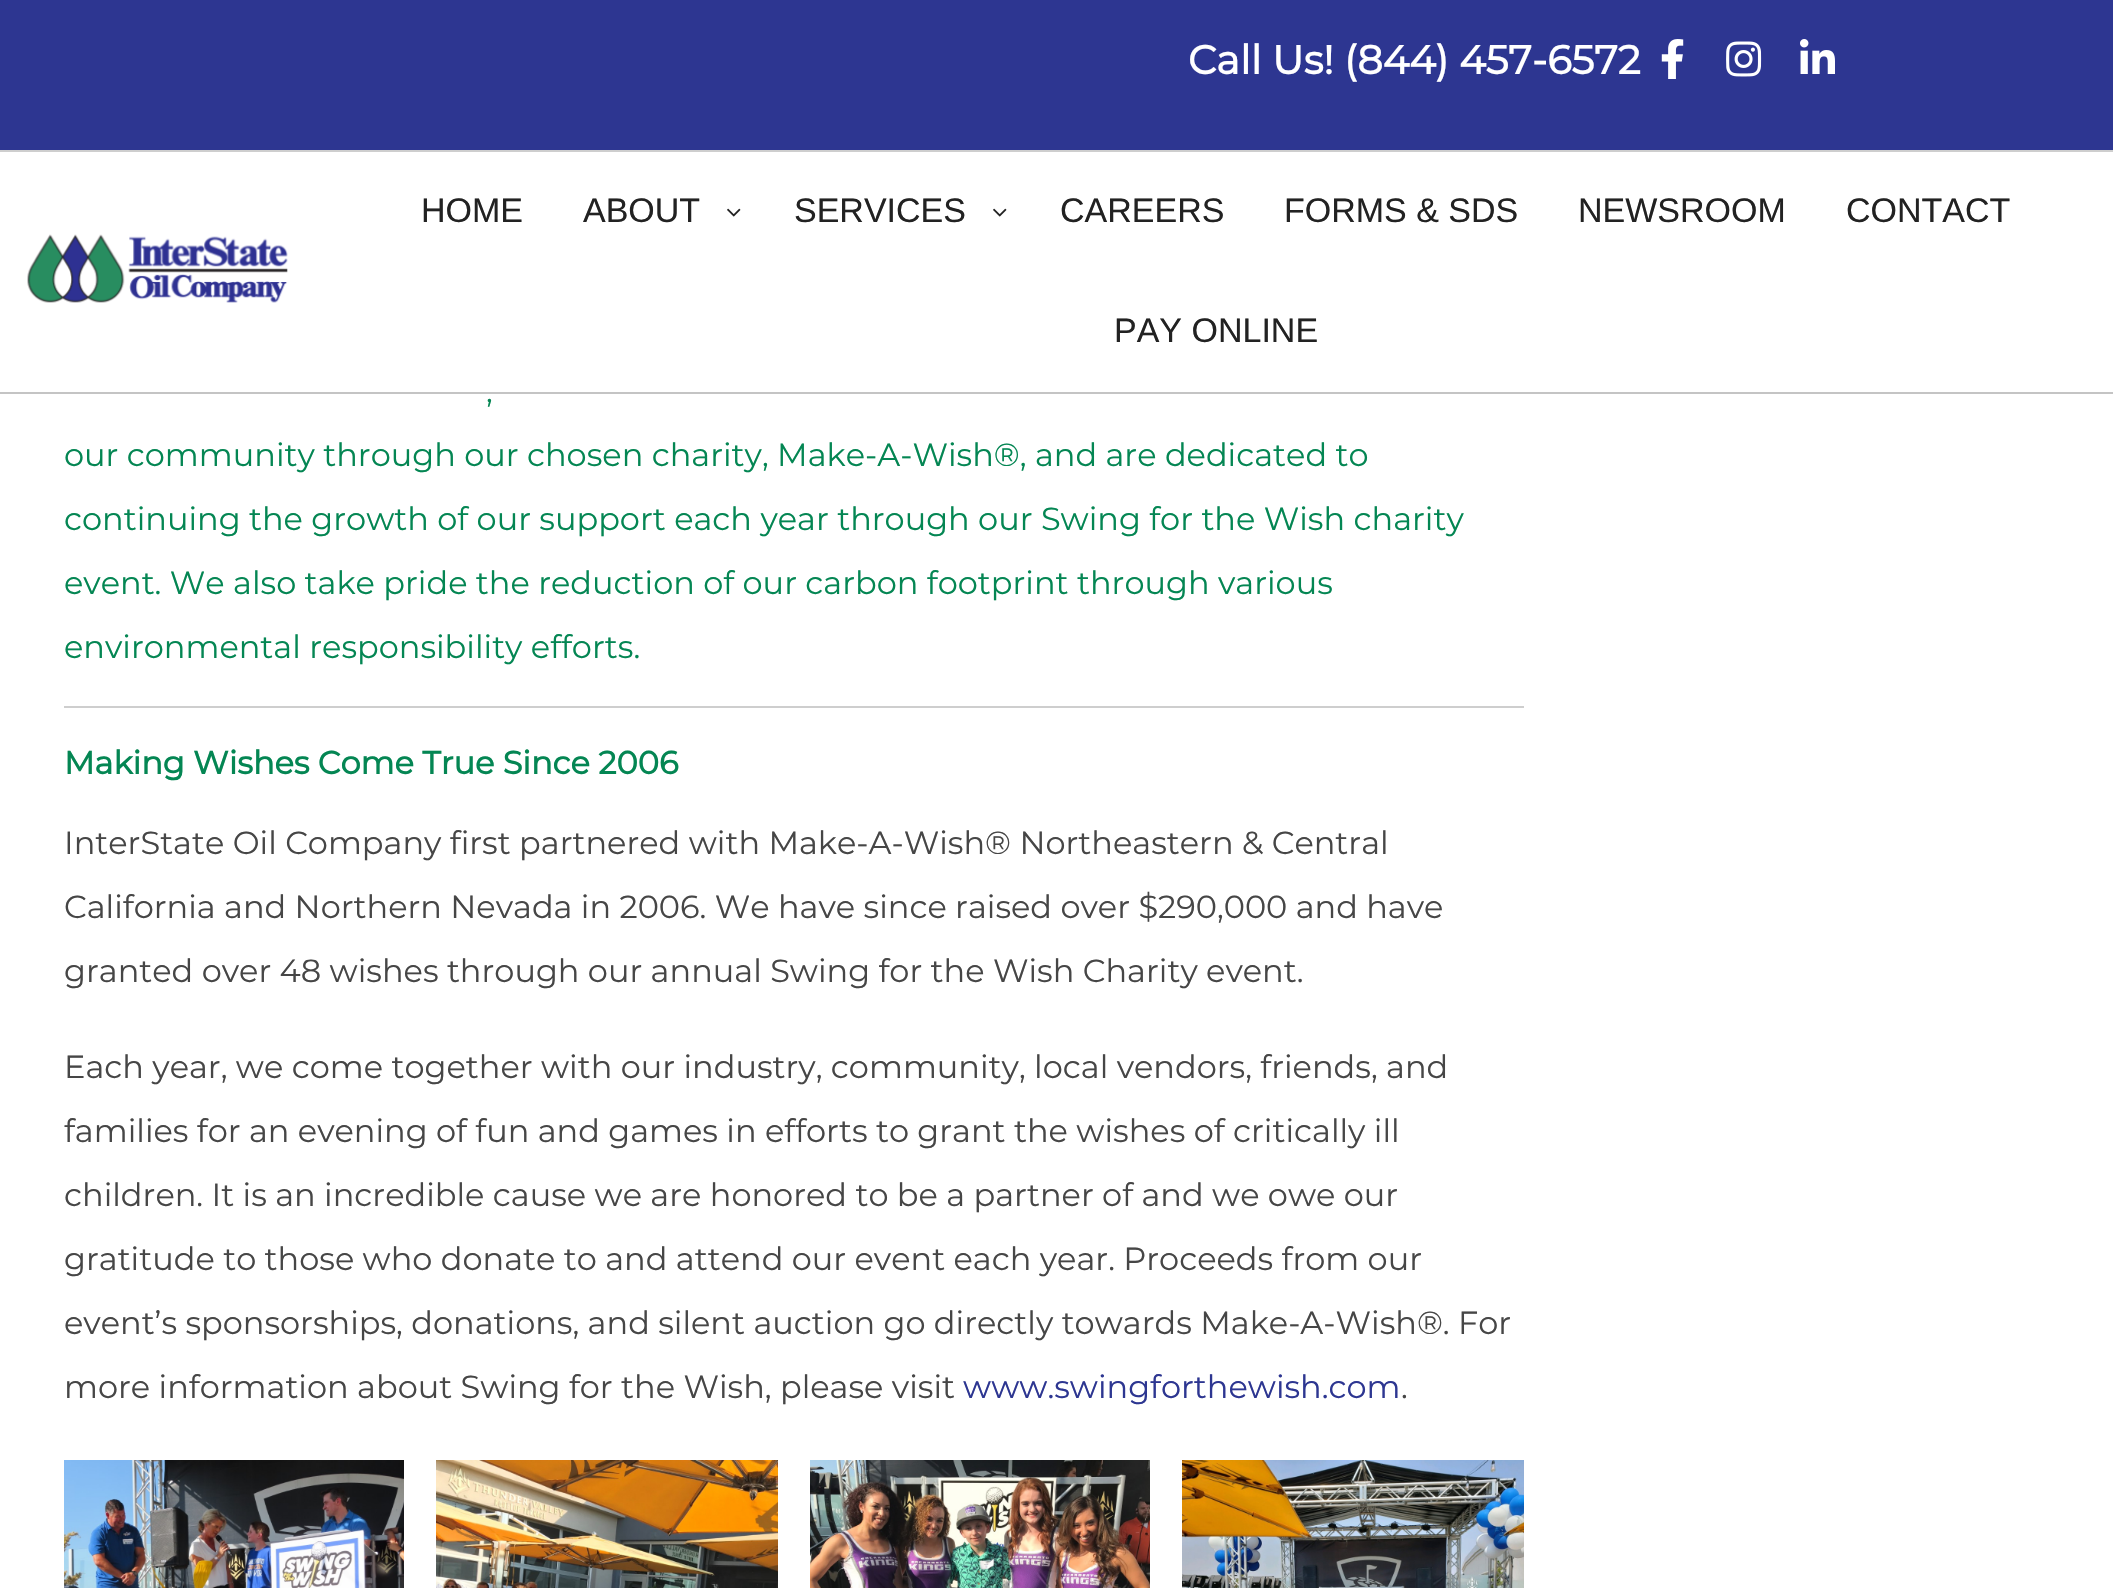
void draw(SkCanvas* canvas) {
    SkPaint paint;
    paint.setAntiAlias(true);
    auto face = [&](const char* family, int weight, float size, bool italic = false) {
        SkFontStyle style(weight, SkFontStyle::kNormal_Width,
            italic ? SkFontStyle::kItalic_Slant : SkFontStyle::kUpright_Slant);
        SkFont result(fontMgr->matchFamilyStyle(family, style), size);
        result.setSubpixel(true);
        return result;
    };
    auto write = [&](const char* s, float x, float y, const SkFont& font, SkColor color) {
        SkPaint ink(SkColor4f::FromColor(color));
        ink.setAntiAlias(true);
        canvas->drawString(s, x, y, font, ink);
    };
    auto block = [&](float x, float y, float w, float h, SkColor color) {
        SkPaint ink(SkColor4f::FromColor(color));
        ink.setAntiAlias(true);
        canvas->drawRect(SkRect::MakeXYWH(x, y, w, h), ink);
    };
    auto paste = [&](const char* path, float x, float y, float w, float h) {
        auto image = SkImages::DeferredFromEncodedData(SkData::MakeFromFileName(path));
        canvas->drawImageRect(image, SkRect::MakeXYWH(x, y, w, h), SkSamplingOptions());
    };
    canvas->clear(SK_ColorWHITE);
    block(0, 0, 2113, 150, SkColorSetRGB(45, 54, 145));
    auto kFont1 = face("Montserrat", 700, 40);
    write("Call Us! (844) 457-6572", 1188, 74, kFont1, SK_ColorWHITE);
    paste("pic1.png", 1661, 39, 23, 40);
    paste("pic2.png", 1726, 41, 36, 36);
    paste("pic3.png", 1800, 39, 35, 35);
    block(0, 150, 2113, 2, SkColorSetRGB(206, 206, 206));
    block(0, 392, 2113, 2, SkColorSetRGB(196, 196, 196));
    paste("pic4.png", 27, 234, 261, 69);
    auto kFont2 = face("Liberation Sans", 400, 34);
    write("HOME", 421, 222, kFont2, SkColorSetRGB(34, 34, 34));
    write("ABOUT", 583, 222, kFont2, SkColorSetRGB(34, 34, 34));
    paste("pic5.png", 727, 208, 14, 9);
    write("SERVICES", 794, 222, kFont2, SkColorSetRGB(34, 34, 34));
    paste("pic5.png", 993, 208, 14, 9);
    write("CAREERS", 1060, 222, kFont2, SkColorSetRGB(34, 34, 34));
    write("FORMS & SDS", 1284, 222, kFont2, SkColorSetRGB(34, 34, 34));
    write("NEWSROOM", 1578, 222, kFont2, SkColorSetRGB(34, 34, 34));
    write("CONTACT", 1846, 222, kFont2, SkColorSetRGB(34, 34, 34));
    write("PAY ONLINE", 1114, 342, kFont2, SkColorSetRGB(34, 34, 34));
    auto kFont3 = face("Montserrat", 100, 32);
    write(",", 486, 402, kFont3, SkColorSetRGB(4, 134, 83));
    write("our community through our chosen charity, Make-A-Wish®, and are dedicated to", 64, 466, kFont3, SkColorSetRGB(4, 134, 83));
    write("continuing the growth of our support each year through our Swing for the Wish charity", 64, 530, kFont3, SkColorSetRGB(4, 134, 83));
    write("event. We also take pride the reduction of our carbon footprint through various", 64, 594, kFont3, SkColorSetRGB(4, 134, 83));
    write("environmental responsibility efforts.", 64, 658, kFont3, SkColorSetRGB(4, 134, 83));
    block(64, 706, 1460, 2, SkColorSetRGB(206, 206, 206));
    auto kFont4 = face("Montserrat", 700, 32);
    write("Making Wishes Come True Since 2006", 64, 774, kFont4, SkColorSetRGB(4, 134, 83));
    write("InterState Oil Company first partnered with Make-A-Wish® Northeastern & Central", 64, 854, kFont3, SkColorSetRGB(70, 70, 70));
    write("California and Northern Nevada in 2006. We have since raised over $290,000 and have", 64, 918, kFont3, SkColorSetRGB(70, 70, 70));
    write("granted over 48 wishes through our annual Swing for the Wish Charity event.", 64, 982, kFont3, SkColorSetRGB(70, 70, 70));
    write("Each year, we come together with our industry, community, local vendors, friends, and", 64, 1078, kFont3, SkColorSetRGB(70, 70, 70));
    write("families for an evening of fun and games in efforts to grant the wishes of critically ill", 64, 1142, kFont3, SkColorSetRGB(70, 70, 70));
    write("children. It is an incredible cause we are honored to be a partner of and we owe our", 64, 1206, kFont3, SkColorSetRGB(70, 70, 70));
    write("gratitude to those who donate to and attend our event each year. Proceeds from our", 64, 1270, kFont3, SkColorSetRGB(70, 70, 70));
    write("event’s sponsorships, donations, and silent auction go directly towards Make-A-Wish®. For", 64, 1334, kFont3, SkColorSetRGB(70, 70, 70));
    write("more information about Swing for the Wish, please visit", 64, 1398, kFont3, SkColorSetRGB(70, 70, 70));
    write("www.swingforthewish.com", 963, 1398, kFont3, SkColorSetRGB(45, 54, 145));
    write(".", 1401, 1398, kFont3, SkColorSetRGB(70, 70, 70));
    paste("pic6.png", 64, 1460, 340, 128);
    paste("pic7.png", 436, 1460, 342, 128);
    paste("pic8.png", 810, 1460, 340, 128);
    paste("pic9.png", 1182, 1460, 342, 128);
}
